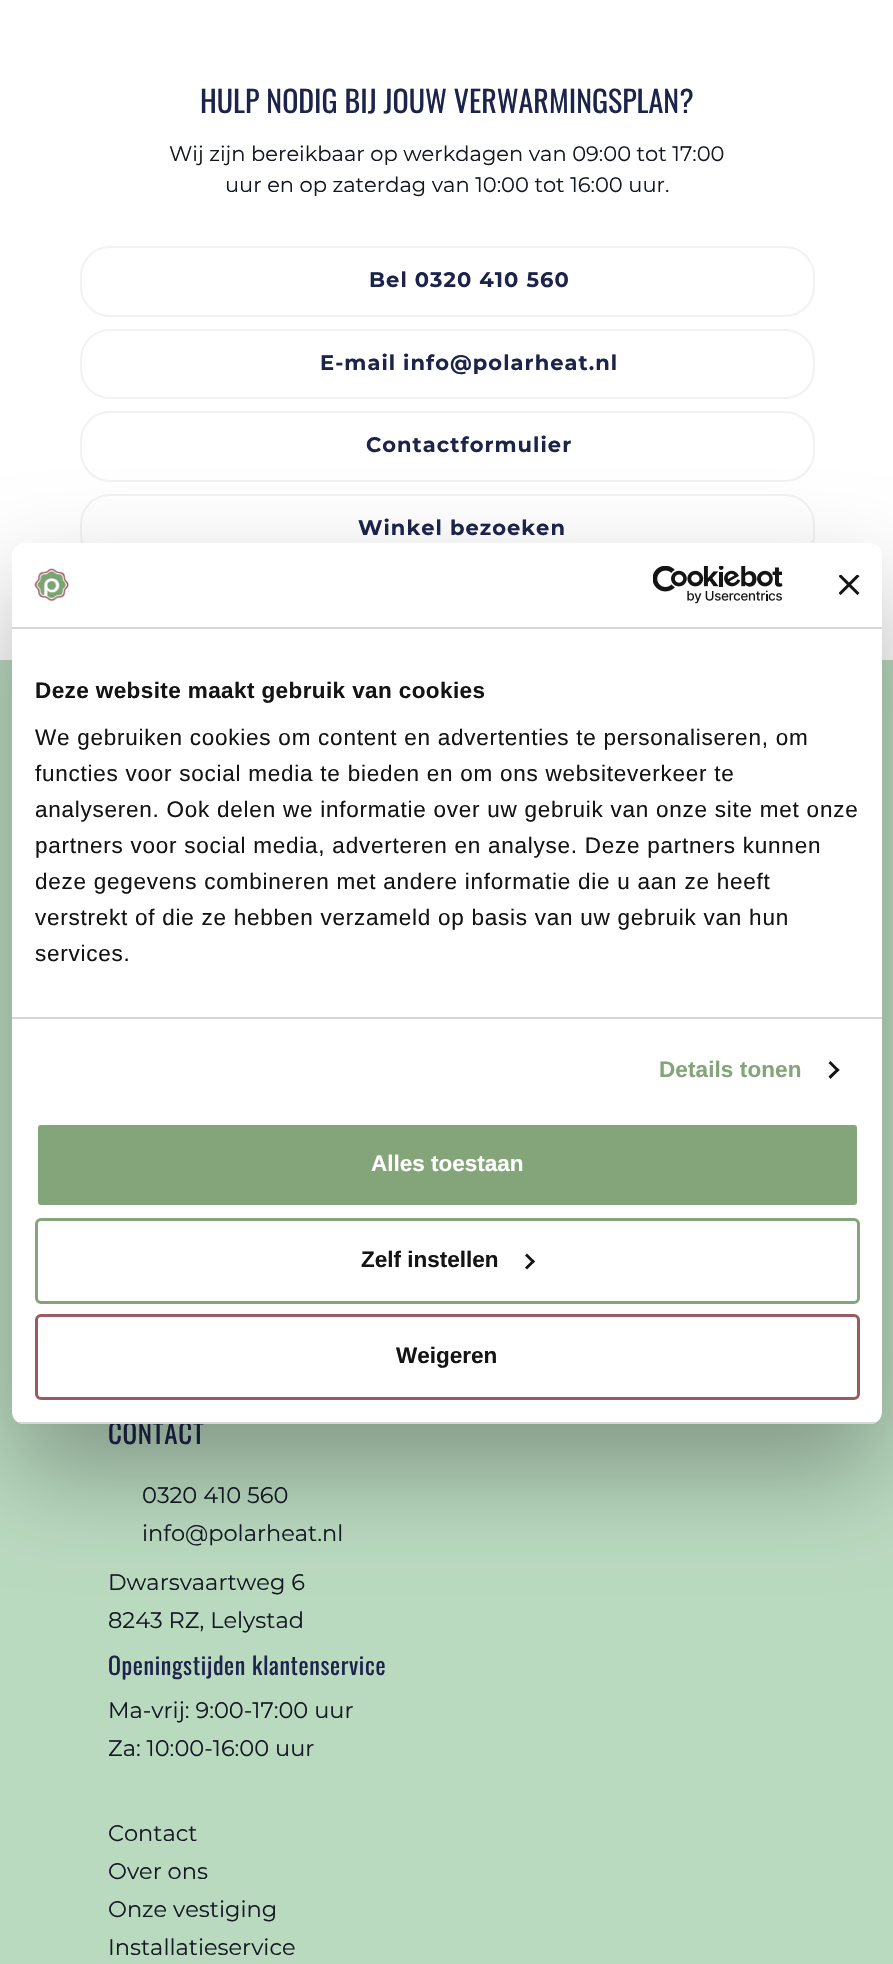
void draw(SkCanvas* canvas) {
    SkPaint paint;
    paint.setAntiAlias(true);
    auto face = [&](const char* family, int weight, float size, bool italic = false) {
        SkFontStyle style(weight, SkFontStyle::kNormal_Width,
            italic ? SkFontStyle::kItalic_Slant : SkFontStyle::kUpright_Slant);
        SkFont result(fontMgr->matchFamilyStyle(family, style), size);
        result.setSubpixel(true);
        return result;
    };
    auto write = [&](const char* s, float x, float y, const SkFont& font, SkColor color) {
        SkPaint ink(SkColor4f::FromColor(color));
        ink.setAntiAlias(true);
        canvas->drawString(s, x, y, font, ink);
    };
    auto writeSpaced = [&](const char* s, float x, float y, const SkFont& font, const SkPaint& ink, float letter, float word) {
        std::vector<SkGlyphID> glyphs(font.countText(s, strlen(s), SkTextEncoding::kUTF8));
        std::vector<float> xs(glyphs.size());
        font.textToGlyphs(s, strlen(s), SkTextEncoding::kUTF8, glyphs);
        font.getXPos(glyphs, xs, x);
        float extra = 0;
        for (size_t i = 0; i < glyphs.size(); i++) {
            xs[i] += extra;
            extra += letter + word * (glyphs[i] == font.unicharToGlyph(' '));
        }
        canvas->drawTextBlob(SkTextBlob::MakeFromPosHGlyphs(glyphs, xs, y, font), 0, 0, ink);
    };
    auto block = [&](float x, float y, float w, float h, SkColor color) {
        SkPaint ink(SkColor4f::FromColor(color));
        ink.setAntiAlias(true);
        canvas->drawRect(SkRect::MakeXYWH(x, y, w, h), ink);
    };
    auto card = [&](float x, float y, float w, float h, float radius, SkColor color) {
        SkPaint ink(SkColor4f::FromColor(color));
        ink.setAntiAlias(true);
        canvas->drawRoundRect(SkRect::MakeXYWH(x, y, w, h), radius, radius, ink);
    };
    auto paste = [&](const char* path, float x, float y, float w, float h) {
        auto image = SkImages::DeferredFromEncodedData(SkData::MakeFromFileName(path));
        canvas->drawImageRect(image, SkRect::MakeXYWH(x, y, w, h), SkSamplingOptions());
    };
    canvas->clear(SK_ColorWHITE);
    auto kFont1 = face("Oswald", 400, 30);
    write("HULP NODIG BIJ JOUW VERWARMINGSPLAN?", 200, 113, kFont1, SkColorSetRGB(28, 36, 75));
    auto kFont2 = face("Montserrat", 400, 21);
    write("Wij zijn bereikbaar op werkdagen van 09:00 tot 17:00", 169, 161, kFont2, SkColorSetRGB(20, 24, 35));
    write("uur en op zaterdag van 10:00 tot 16:00 uur.", 225, 192, kFont2, SkColorSetRGB(20, 24, 35));
    paint.setStyle(SkPaint::kStroke_Style);
    paint.setStrokeWidth(2);
    paint.setColor(SkColorSetRGB(242, 242, 242));
    canvas->drawRoundRect(SkRect::MakeXYWH(81, 247, 733, 69), 29, 29, paint);
    auto kFont3 = face("Montserrat", 700, 21);
    paint.setStyle(SkPaint::kFill_Style);
    paint.setColor(SkColorSetRGB(28, 36, 75));
    writeSpaced("Bel 0320 410 560", 369, 287, kFont3, paint, 1.05f, 0);
    paint.setStyle(SkPaint::kStroke_Style);
    paint.setColor(SkColorSetRGB(242, 242, 242));
    canvas->drawRoundRect(SkRect::MakeXYWH(81, 330, 733, 68), 29, 29, paint);
    paint.setStyle(SkPaint::kFill_Style);
    paint.setColor(SkColorSetRGB(28, 36, 75));
    writeSpaced("E-mail info@polarheat.nl", 320, 370, kFont3, paint, 1.05f, 0);
    paint.setStyle(SkPaint::kStroke_Style);
    paint.setColor(SkColorSetRGB(242, 242, 242));
    canvas->drawRoundRect(SkRect::MakeXYWH(81, 412, 733, 69), 29, 29, paint);
    paint.setStyle(SkPaint::kFill_Style);
    paint.setColor(SkColorSetRGB(28, 36, 75));
    writeSpaced("Contactformulier", 366, 452, kFont3, paint, 1.05f, 0);
    paint.setStyle(SkPaint::kStroke_Style);
    paint.setColor(SkColorSetRGB(242, 242, 242));
    canvas->drawRoundRect(SkRect::MakeXYWH(81, 495, 733, 68), 29, 29, paint);
    paint.setStyle(SkPaint::kFill_Style);
    paint.setColor(SkColorSetRGB(28, 36, 75));
    writeSpaced("Winkel bezoeken", 358, 535, kFont3, paint, 1.05f, 0);
    block(0, 660, 893, 1304, SkColorSetRGB(186, 218, 192));
    auto kFont4 = face("Oswald", 400, 27);
    writeSpaced("CONTACT", 108, 1444, kFont4, paint, 0.6f, 0);
    auto kFont5 = face("Montserrat", 400, 22.5f);
    write("0320 410 560", 142, 1503, kFont5, SkColorSetRGB(20, 24, 35));
    write("info@polarheat.nl", 142, 1541, kFont5, SkColorSetRGB(20, 24, 35));
    write("Dwarsvaartweg 6", 108, 1590, kFont5, SkColorSetRGB(20, 24, 35));
    write("8243 RZ, Lelystad", 108, 1628, kFont5, SkColorSetRGB(20, 24, 35));
    auto kFont6 = face("Oswald", 400, 24);
    writeSpaced("Openingstijden klantenservice", 108, 1675, kFont6, paint, 0.6f, 0);
    write("Ma-vrij: 9:00-17:00 uur", 108, 1718, kFont5, SkColorSetRGB(20, 24, 35));
    write("Za: 10:00-16:00 uur", 108, 1756, kFont5, SkColorSetRGB(20, 24, 35));
    write("Contact", 108, 1841, kFont5, SkColorSetRGB(20, 24, 35));
    write("Over ons", 108, 1879, kFont5, SkColorSetRGB(20, 24, 35));
    write("Onze vestiging", 108, 1917, kFont5, SkColorSetRGB(20, 24, 35));
    write("Installatieservice", 108, 1955, kFont5, SkColorSetRGB(20, 24, 35));
    paint.setColor(SkColorSetARGB(77, 0, 0, 0));
    paint.setMaskFilter(SkMaskFilter::MakeBlur(kNormal_SkBlurStyle, 51));
    canvas->drawRoundRect(SkRect::MakeXYWH(12, 591, 870, 881), 12, 12, paint);
    paint.setMaskFilter(nullptr);
    card(12, 543, 870, 881, 12, SK_ColorWHITE);
    block(12, 627, 870, 2, SkColorSetRGB(214, 214, 214));
    paste("pic1.png", 34, 568, 35, 34);
    paste("pic2.png", 653, 566, 130, 38);
    paste("pic3.png", 839, 575, 21, 20);
    block(12, 1017, 870, 2, SkColorSetRGB(214, 214, 214));
    auto kFont7 = face("Liberation Sans", 700, 22.5f);
    paint.setColor(SkColorSetRGB(20, 20, 20));
    writeSpaced("Deze website maakt gebruik van cookies", 35, 698, kFont7, paint, 0.4f, 0);
    auto kFont8 = face("Liberation Sans", 400, 22.5f);
    writeSpaced("We gebruiken cookies om content en advertenties te personaliseren, om", 35, 745, kFont8, paint, 0.75f, 0);
    writeSpaced("functies voor social media te bieden en om ons websiteverkeer te", 35, 781, kFont8, paint, 0.75f, 0);
    writeSpaced("analyseren. Ook delen we informatie over uw gebruik van onze site met onze", 35, 817, kFont8, paint, 0.75f, 0);
    writeSpaced("partners voor social media, adverteren en analyse. Deze partners kunnen", 35, 853, kFont8, paint, 0.75f, 0);
    writeSpaced("deze gegevens combineren met andere informatie die u aan ze heeft", 35, 889, kFont8, paint, 0.75f, 0);
    writeSpaced("verstrekt of die ze hebben verzameld op basis van uw gebruik van hun", 35, 925, kFont8, paint, 0.75f, 0);
    writeSpaced("services.", 35, 961, kFont8, paint, 0.75f, 0);
    paint.setColor(SkColorSetRGB(132, 165, 121));
    writeSpaced("Details tonen", 659, 1077, kFont7, paint, 0.1f, 0);
    paint.setColor(SkColorSetRGB(20, 20, 20));
    canvas->drawPath(SkPathBuilder().moveTo(830.5f, 1061).lineTo(839.5f, 1070).lineTo(837.5f, 1072).lineTo(828.5f, 1063).close().detach(), paint);
    canvas->drawPath(SkPathBuilder().moveTo(837.5f, 1068).lineTo(839.5f, 1070).lineTo(830.5f, 1079).lineTo(828.5f, 1076.5f).close().detach(), paint);
    canvas->save();
    canvas->clipPath(SkPathBuilder().moveTo(24, 543).lineTo(870, 543).cubicTo(876.5f, 543, 882, 548.5f, 882, 555).lineTo(882, 1412).cubicTo(882, 1418.5f, 876.5f, 1424, 870, 1424).lineTo(24, 1424).cubicTo(17.5f, 1424, 12, 1418.5f, 12, 1412).lineTo(12, 555).cubicTo(12, 548.5f, 17.5f, 543, 24, 543).close().detach(), true);
    block(12, 1422, 870, 2, SkColorSetRGB(214, 214, 214));
    canvas->restore();
    paint.setColor(SkColorSetRGB(132, 165, 121));
    canvas->drawRoundRect(SkRect::MakeXYWH(36.5f, 1123.5f, 822, 83), 4.5f, 4.5f, paint);
    paint.setStyle(SkPaint::kStroke_Style);
    paint.setStrokeWidth(3);
    paint.setColor(SK_ColorWHITE);
    canvas->drawRoundRect(SkRect::MakeXYWH(36.5f, 1123.5f, 822, 83), 4.5f, 4.5f, paint);
    write("Alles toestaan", 371, 1171, kFont7, SK_ColorWHITE);
    paint.setColor(SkColorSetRGB(132, 165, 121));
    canvas->drawRoundRect(SkRect::MakeXYWH(36.5f, 1219.5f, 822, 83), 4.5f, 4.5f, paint);
    write("Zelf instellen", 361, 1267, kFont7, SkColorSetRGB(20, 20, 20));
    paint.setStyle(SkPaint::kFill_Style);
    paint.setColor(SkColorSetRGB(20, 20, 20));
    canvas->drawPath(SkPathBuilder().moveTo(527, 1253.5f).lineTo(535, 1261.5f).lineTo(533, 1263.5f).lineTo(525, 1255.5f).close().detach(), paint);
    canvas->drawPath(SkPathBuilder().moveTo(533, 1259.5f).lineTo(535, 1261.5f).lineTo(527, 1269.5f).lineTo(525, 1267.5f).close().detach(), paint);
    paint.setStyle(SkPaint::kStroke_Style);
    paint.setColor(SkColorSetRGB(156, 89, 95));
    canvas->drawRoundRect(SkRect::MakeXYWH(36.5f, 1315.5f, 822, 83), 4.5f, 4.5f, paint);
    write("Weigeren", 396, 1363, kFont7, SkColorSetRGB(20, 20, 20));
}
